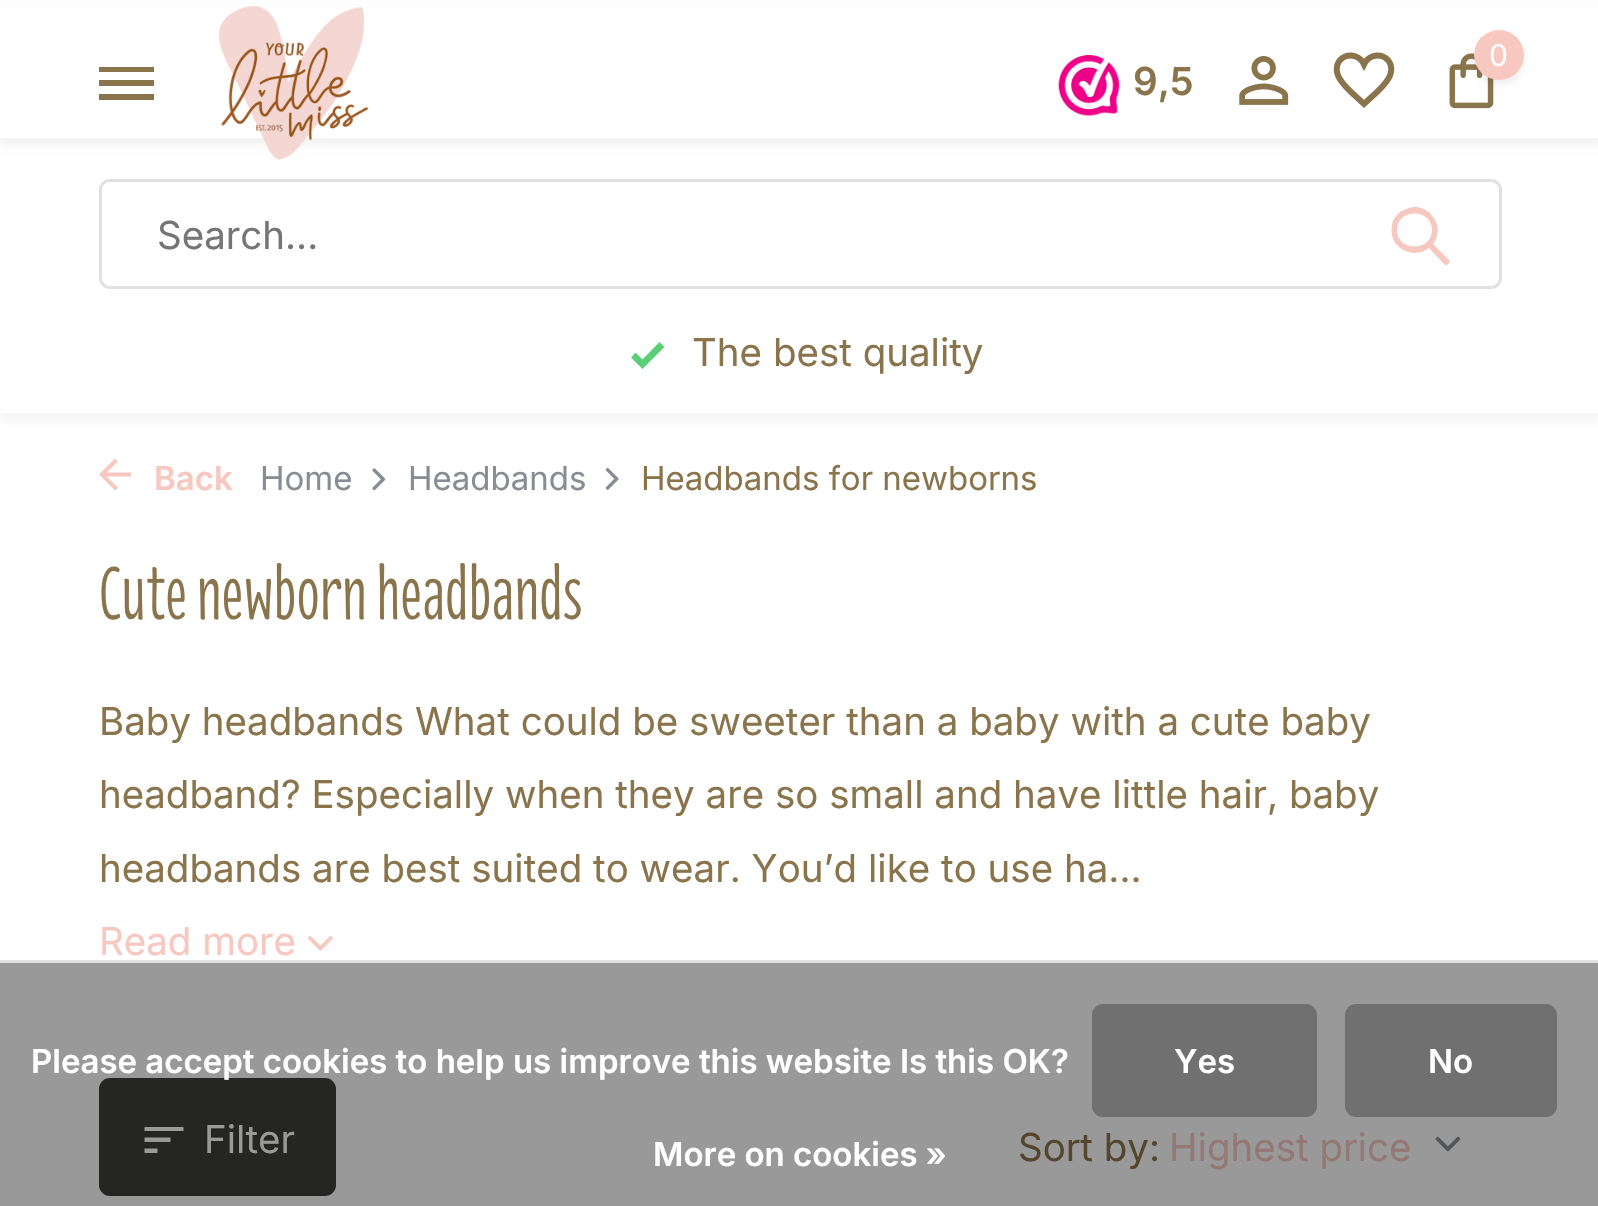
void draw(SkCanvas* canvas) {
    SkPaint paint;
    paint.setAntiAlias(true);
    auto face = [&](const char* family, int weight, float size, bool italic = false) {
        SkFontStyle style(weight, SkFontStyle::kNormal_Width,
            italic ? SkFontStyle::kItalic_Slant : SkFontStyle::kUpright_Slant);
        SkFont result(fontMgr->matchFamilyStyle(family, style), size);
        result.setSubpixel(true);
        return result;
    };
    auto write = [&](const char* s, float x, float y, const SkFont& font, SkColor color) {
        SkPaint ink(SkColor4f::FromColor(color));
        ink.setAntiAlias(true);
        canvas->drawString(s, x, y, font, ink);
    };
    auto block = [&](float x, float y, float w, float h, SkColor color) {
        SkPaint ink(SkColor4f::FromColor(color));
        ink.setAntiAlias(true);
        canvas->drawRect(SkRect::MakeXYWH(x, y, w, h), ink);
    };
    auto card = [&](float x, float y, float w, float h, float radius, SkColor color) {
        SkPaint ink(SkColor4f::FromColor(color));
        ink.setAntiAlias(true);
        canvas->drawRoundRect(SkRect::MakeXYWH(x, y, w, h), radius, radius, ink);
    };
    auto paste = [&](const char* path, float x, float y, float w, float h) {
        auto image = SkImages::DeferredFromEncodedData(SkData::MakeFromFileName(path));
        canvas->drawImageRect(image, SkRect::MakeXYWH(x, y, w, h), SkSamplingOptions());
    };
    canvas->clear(SK_ColorWHITE);
    block(0, 963, 1598, 243, SkColorSetRGB(153, 153, 153));
    paint.setColor(SkColorSetARGB(10, 0, 0, 0));
    paint.setMaskFilter(SkMaskFilter::MakeBlur(kNormal_SkBlurStyle, 4));
    canvas->drawRect(SkRect::MakeXYWH(0, 146, 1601, 275), paint);
    paint.setMaskFilter(nullptr);
    block(0, 143, 1598, 270, SK_ColorWHITE);
    paint.setMaskFilter(SkMaskFilter::MakeBlur(kNormal_SkBlurStyle, 4));
    canvas->drawRect(SkRect::MakeXYWH(0, 8, 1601, 138), paint);
    paint.setMaskFilter(nullptr);
    block(0, 5, 1598, 133, SK_ColorWHITE);
    paste("pic1.png", 218, 5, 151, 155);
    paste("pic2.png", 1239, 56, 50, 49);
    paste("pic3.png", 1333, 52, 62, 56);
    paste("pic4.png", 1449, 53, 45, 56);
    paint.setColor(SkColorSetARGB(15, 0, 0, 0));
    paint.setMaskFilter(SkMaskFilter::MakeBlur(kNormal_SkBlurStyle, 3));
    canvas->drawRoundRect(SkRect::MakeXYWH(1474, 36, 50, 49), 24.5f, 24.5f, paint);
    paint.setMaskFilter(nullptr);
    paint.setColor(SkColorSetRGB(247, 200, 192));
    canvas->drawCircle(1499, 55, 25, paint);
    auto kFont1 = face("Inter", 400, 30);
    write("0", 1489, 66, kFont1, SK_ColorWHITE);
    paint.setColor(SkColorSetRGB(138, 116, 75));
    canvas->drawPath(SkPathBuilder().moveTo(99, 100).lineTo(154, 100).lineTo(154, 94).lineTo(99, 94).close().moveTo(99, 86).lineTo(154, 86).lineTo(154, 80).lineTo(99, 80).close().moveTo(99, 67).lineTo(99, 72).lineTo(154, 72).lineTo(154, 67).close().detach(), paint);
    paste("pic5.png", 1058, 55, 62, 61);
    auto kFont2 = face("Inter", 600, 38.5f);
    write("9,5", 1133, 95, kFont2, SkColorSetRGB(138, 116, 75));
    paint.setStyle(SkPaint::kStroke_Style);
    paint.setStrokeWidth(3);
    paint.setColor(SkColorSetRGB(225, 225, 225));
    canvas->drawRoundRect(SkRect::MakeXYWH(100.5f, 180.5f, 1400, 107), 9.5f, 9.5f, paint);
    auto kFont3 = face("Inter", 400, 38.5f);
    write("Search...", 157, 249, kFont3, SkColorSetRGB(117, 117, 117));
    paint.setStyle(SkPaint::kFill_Style);
    paint.setColor(SkColorSetRGB(247, 200, 192));
    canvas->drawPath(SkPathBuilder().moveTo(1449, 260).cubicTo(1451, 262, 1447, 266, 1445, 265).lineTo(1429, 248).cubicTo(1418, 257, 1401, 253, 1394, 241).cubicTo(1391, 235, 1391, 227, 1393, 221).cubicTo(1395, 216, 1399, 212, 1404, 210).cubicTo(1425, 198, 1448, 225, 1433, 244).close().moveTo(1397, 230).cubicTo(1397, 252, 1432, 252, 1432, 230).cubicTo(1432, 208, 1397, 208, 1397, 230).close().detach(), paint);
    paint.setColor(SkColorSetRGB(91, 207, 118));
    canvas->drawPath(SkPathBuilder().moveTo(659.5f, 342).lineTo(664.5f, 347).lineTo(642.5f, 369).lineTo(631, 357.5f).lineTo(635.5f, 352.5f).lineTo(642.5f, 359.5f).close().detach(), paint);
    write("The best quality", 692, 366, kFont3, SkColorSetRGB(138, 116, 75));
    auto kFont4 = face("Inter", 600, 33);
    write("Back", 154, 490, kFont4, SkColorSetRGB(247, 200, 192));
    paint.setColor(SkColorSetRGB(247, 200, 192));
    canvas->drawPath(SkPathBuilder().moveTo(131, 472.5f).lineTo(106.5f, 472.5f).lineTo(118, 461.5f).lineTo(115, 458.5f).lineTo(99, 474.5f).lineTo(115, 490.5f).lineTo(118, 487.5f).lineTo(106.5f, 476.5f).lineTo(131, 476.5f).close().detach(), paint);
    auto kFont5 = face("Inter", 400, 33);
    write("Home", 260, 490, kFont5, SkColorSetRGB(137, 141, 147));
    paste("pic6.png", 372, 468, 14, 23);
    write("Headbands", 408, 490, kFont5, SkColorSetRGB(137, 141, 147));
    paste("pic7.png", 605, 467, 14, 23);
    write("Headbands for newborns", 641, 490, kFont5, SkColorSetRGB(138, 116, 75));
    auto kFont6 = face("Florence", 400, 77);
    write("Cute newborn headbands", 99, 619, kFont6, SkColorSetRGB(138, 116, 75));
    write("Baby headbands What could be sweeter than a baby with a cute baby", 99, 735, kFont3, SkColorSetRGB(138, 116, 75));
    write("headband? Especially when they are so small and have little hair, baby", 99, 808, kFont3, SkColorSetRGB(138, 116, 75));
    write("headbands are best suited to wear. You’d like to use ha...", 99, 882, kFont3, SkColorSetRGB(138, 116, 75));
    write("Read more", 99, 955, kFont3, SkColorSetRGB(247, 200, 192));
    paste("pic8.png", 308, 936, 25, 15);
    paint.setColor(SkColorSetRGB(37, 37, 35));
    canvas->drawRoundRect(SkRect::MakeXYWH(100.5f, 1079.5f, 234, 115), 9.5f, 9.5f, paint);
    paint.setStyle(SkPaint::kStroke_Style);
    canvas->drawRoundRect(SkRect::MakeXYWH(100.5f, 1079.5f, 234, 115), 9.5f, 9.5f, paint);
    paint.setStyle(SkPaint::kFill_Style);
    paint.setColor(SkColorSetRGB(153, 153, 153));
    canvas->drawPath(SkPathBuilder().moveTo(144.5f, 1153).lineTo(157.5f, 1153).lineTo(157.5f, 1148.5f).lineTo(144.5f, 1148.5f).close().moveTo(144.5f, 1127).lineTo(144.5f, 1131).lineTo(183.5f, 1131).lineTo(183.5f, 1127).close().moveTo(144.5f, 1142).lineTo(170.5f, 1142).lineTo(170.5f, 1137.5f).lineTo(144.5f, 1137.5f).close().detach(), paint);
    write("Filter", 204, 1153, kFont3, SkColorSetRGB(153, 153, 153));
    write("Sort by:", 1018, 1161, kFont3, SkColorSetRGB(83, 70, 45));
    write("Highest price", 1169, 1161, kFont3, SkColorSetRGB(148, 120, 115));
    paste("pic9.png", 1435, 1136, 26, 16);
    block(0, 960, 1598, 3, SkColorSetRGB(225, 225, 225));
    write("Please accept cookies to help us improve this website Is this OK?", 31, 1073, kFont4, SK_ColorWHITE);
    card(1092, 1004, 225, 113, 11, SkColorSetRGB(112, 112, 112));
    write("Yes", 1174, 1073, kFont4, SK_ColorWHITE);
    card(1345, 1004, 212, 113, 11, SkColorSetRGB(112, 112, 112));
    write("No", 1428, 1073, kFont4, SK_ColorWHITE);
    write("More on cookies »", 653, 1166, kFont4, SK_ColorWHITE);
}
